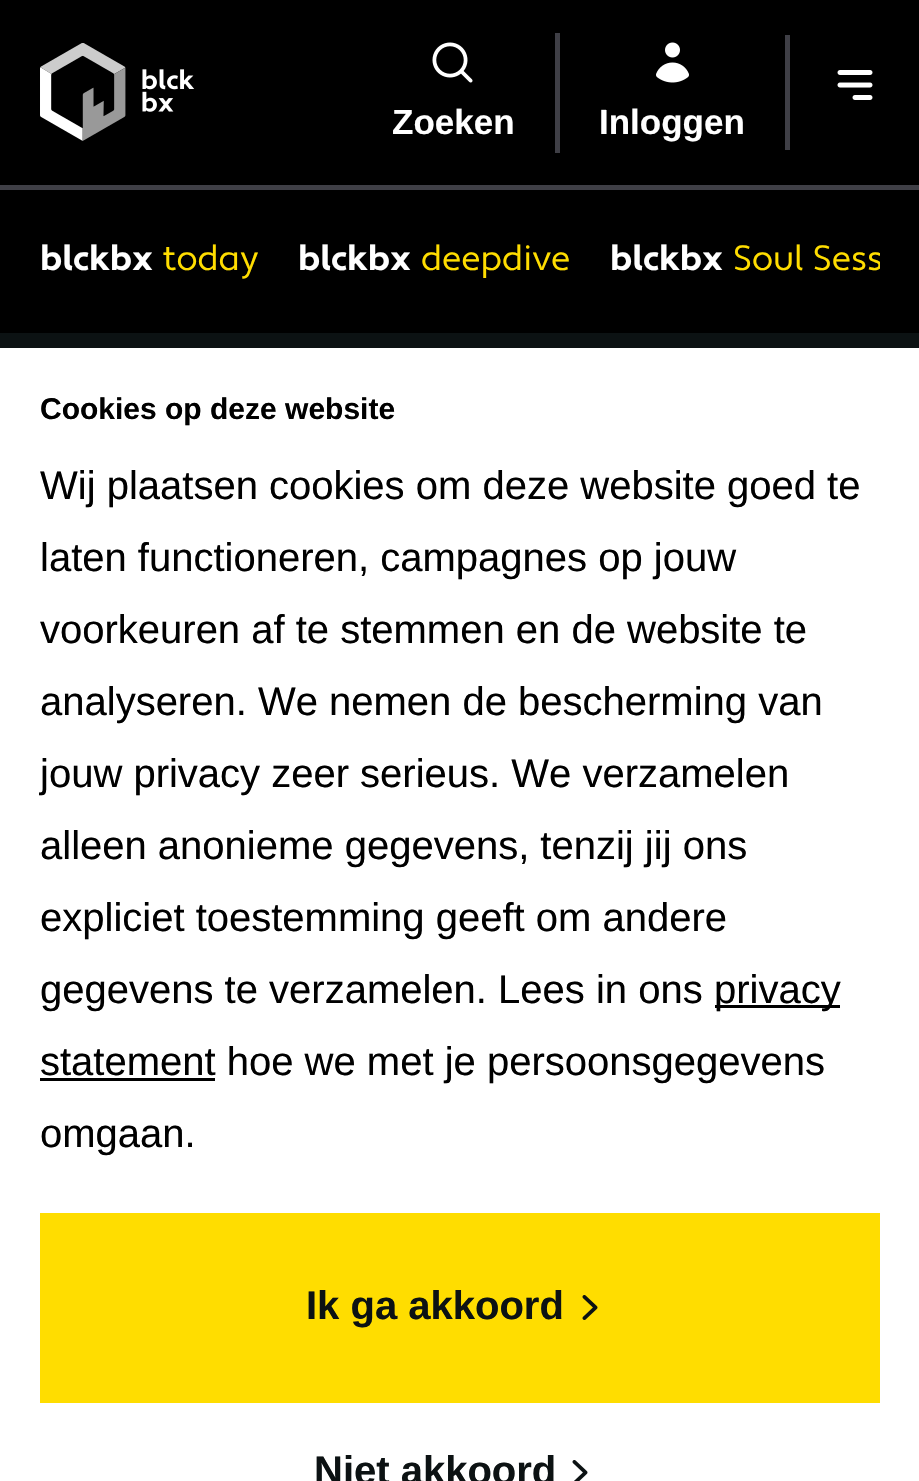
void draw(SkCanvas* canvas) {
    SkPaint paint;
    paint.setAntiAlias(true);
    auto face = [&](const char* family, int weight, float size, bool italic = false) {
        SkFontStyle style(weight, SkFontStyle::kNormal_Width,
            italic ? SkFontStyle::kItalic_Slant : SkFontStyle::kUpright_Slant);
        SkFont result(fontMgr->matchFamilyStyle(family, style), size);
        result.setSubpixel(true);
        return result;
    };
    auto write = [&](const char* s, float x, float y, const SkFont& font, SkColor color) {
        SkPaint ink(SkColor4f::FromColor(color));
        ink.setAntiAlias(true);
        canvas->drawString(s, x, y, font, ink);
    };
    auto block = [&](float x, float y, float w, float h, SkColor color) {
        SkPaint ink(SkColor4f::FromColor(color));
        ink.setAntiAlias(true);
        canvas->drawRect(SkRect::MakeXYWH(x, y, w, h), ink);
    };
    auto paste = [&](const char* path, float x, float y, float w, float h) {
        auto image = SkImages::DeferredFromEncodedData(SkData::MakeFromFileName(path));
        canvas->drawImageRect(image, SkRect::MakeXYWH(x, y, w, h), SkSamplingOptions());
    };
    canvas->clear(SkColorSetRGB(12, 18, 19));
    block(0, 0, 919, 333, SK_ColorBLACK);
    block(0, 185, 919, 5, SkColorSetRGB(63, 63, 70));
    paste("pic1.png", 40, 43, 155, 98);
    paste("pic2.png", 432, 42, 41, 41);
    auto kFont1 = face("Liberation Sans", 700, 35);
    write("Zoeken", 392, 134, kFont1, SK_ColorWHITE);
    block(555, 33, 5, 120, SkColorSetRGB(63, 63, 70));
    paste("pic3.png", 656, 42, 33, 41);
    write("Inloggen", 599, 134, kFont1, SK_ColorWHITE);
    block(785, 35, 5, 115, SkColorSetRGB(63, 63, 70));
    paste("pic4.png", 837, 70, 36, 30);
    auto kFont2 = face("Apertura", 700, 35);
    write("blckbx", 40, 270, kFont2, SK_ColorWHITE);
    auto kFont3 = face("Apertura", 400, 35);
    write("today", 163, 270, kFont3, SkColorSetRGB(255, 221, 0));
    write("blckbx", 298, 270, kFont2, SK_ColorWHITE);
    write("deepdive", 421, 270, kFont3, SkColorSetRGB(255, 221, 0));
    write("blckbx", 610, 270, kFont2, SK_ColorWHITE);
    canvas->save();
    canvas->clipRect(SkRect::MakeXYWH(40, 190, 840, 143));
    write("Soul Sess", 733, 270, kFont3, SkColorSetRGB(255, 221, 0));
    canvas->restore();
    block(0, 348, 919, 1133, SK_ColorWHITE);
    auto kFont4 = face("Liberation Sans", 700, 30);
    write("Cookies op deze website", 40, 419, kFont4, SK_ColorBLACK);
    auto kFont5 = face("Liberation Sans", 400, 40);
    write("Wij plaatsen cookies om deze website goed te", 40, 499, kFont5, SK_ColorBLACK);
    write("laten functioneren, campagnes op jouw", 40, 571, kFont5, SK_ColorBLACK);
    write("voorkeuren af te stemmen en de website te", 40, 643, kFont5, SK_ColorBLACK);
    write("analyseren. We nemen de bescherming van", 40, 715, kFont5, SK_ColorBLACK);
    write("jouw privacy zeer serieus. We verzamelen", 40, 787, kFont5, SK_ColorBLACK);
    write("alleen anonieme gegevens, tenzij jij ons", 40, 859, kFont5, SK_ColorBLACK);
    write("expliciet toestemming geeft om andere", 40, 931, kFont5, SK_ColorBLACK);
    write("gegevens te verzamelen. Lees in ons", 40, 1003, kFont5, SK_ColorBLACK);
    block(715, 1005, 125, 3, SK_ColorBLACK);
    write("privacy", 714, 1003, kFont5, SK_ColorBLACK);
    block(40, 1078, 175, 3, SK_ColorBLACK);
    write("statement hoe we met je persoonsgegevens", 40, 1075, kFont5, SK_ColorBLACK);
    write("omgaan.", 40, 1147, kFont5, SK_ColorBLACK);
    block(40, 1213, 840, 190, SkColorSetRGB(255, 221, 0));
    auto kFont6 = face("Liberation Sans", 700, 40);
    write("Ik ga akkoord", 306, 1319, kFont6, SkColorSetRGB(12, 18, 19));
    paste("pic5.png", 582, 1295, 16, 25);
    write("Niet akkoord", 314, 1484, kFont6, SkColorSetRGB(12, 18, 19));
    paste("pic6.png", 572, 1460, 16, 21);
}
